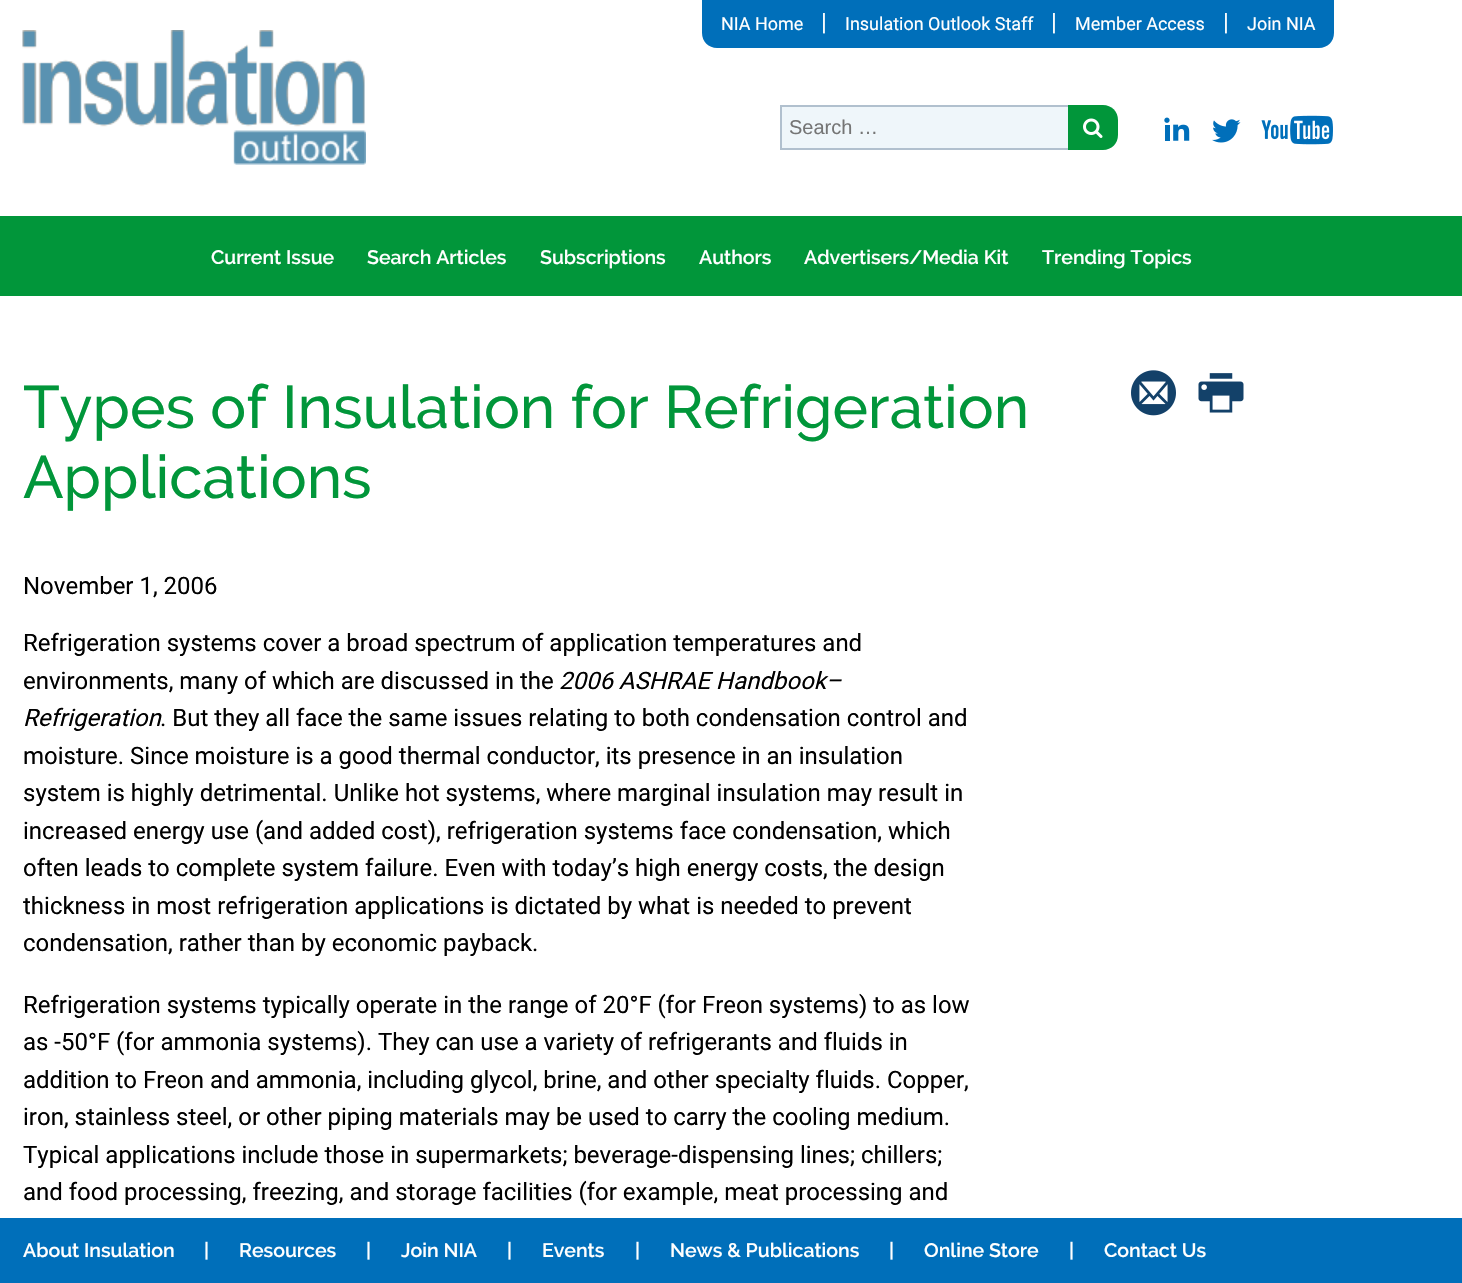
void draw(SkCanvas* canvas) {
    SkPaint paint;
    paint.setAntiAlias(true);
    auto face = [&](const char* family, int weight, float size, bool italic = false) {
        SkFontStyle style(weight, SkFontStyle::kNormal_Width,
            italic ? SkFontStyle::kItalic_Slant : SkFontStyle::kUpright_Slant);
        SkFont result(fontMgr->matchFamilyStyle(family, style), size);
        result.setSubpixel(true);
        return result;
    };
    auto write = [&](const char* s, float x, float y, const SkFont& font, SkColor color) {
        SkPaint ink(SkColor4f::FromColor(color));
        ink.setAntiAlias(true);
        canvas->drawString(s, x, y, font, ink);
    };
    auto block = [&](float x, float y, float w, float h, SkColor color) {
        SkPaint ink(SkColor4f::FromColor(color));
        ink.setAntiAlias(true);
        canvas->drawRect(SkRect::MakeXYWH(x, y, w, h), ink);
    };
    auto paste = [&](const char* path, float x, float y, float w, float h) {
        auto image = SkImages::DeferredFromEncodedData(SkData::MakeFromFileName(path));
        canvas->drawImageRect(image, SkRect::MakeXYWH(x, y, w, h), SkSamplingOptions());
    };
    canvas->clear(SK_ColorWHITE);
    paste("pic1.png", 22, 30, 344, 135);
    paint.setColor(SkColorSetRGB(0, 111, 186));
    canvas->drawPath(SkPathBuilder().moveTo(702, 0).lineTo(827, 0).lineTo(827, 48).lineTo(717, 48).cubicTo(708.5f, 48, 702, 41.5f, 702, 33).close().detach(), paint);
    auto kFont1 = face("Roboto", 400, 18);
    write("NIA Home", 721, 30, kFont1, SK_ColorWHITE);
    auto kFont2 = face("Roboto", 400, 24);
    write("|", 821, 30, kFont2, SK_ColorWHITE);
    block(827, 0, 402, 48, SkColorSetRGB(0, 111, 186));
    write("Insulation Outlook Staff", 845, 30, kFont1, SK_ColorWHITE);
    write("|", 1051, 30, kFont2, SK_ColorWHITE);
    write("Member Access", 1075, 30, kFont1, SK_ColorWHITE);
    write("|", 1223, 30, kFont2, SK_ColorWHITE);
    canvas->drawPath(SkPathBuilder().moveTo(1229, 0).lineTo(1334, 0).lineTo(1334, 33).cubicTo(1334, 41.5f, 1327.5f, 48, 1319, 48).lineTo(1229, 48).close().detach(), paint);
    write("Join NIA", 1247, 30, kFont1, SK_ColorWHITE);
    paint.setColor(SkColorSetRGB(239, 246, 250));
    canvas->drawPath(SkPathBuilder().moveTo(781, 106).lineTo(1095, 106).cubicTo(1102.5f, 106, 1109, 112.5f, 1109, 120).lineTo(1109, 135).cubicTo(1109, 142.5f, 1102.5f, 149, 1095, 149).lineTo(781, 149).close().detach(), paint);
    paint.setStyle(SkPaint::kStroke_Style);
    paint.setStrokeWidth(2);
    paint.setColor(SkColorSetRGB(177, 192, 206));
    canvas->drawPath(SkPathBuilder().moveTo(781, 106).lineTo(1095, 106).cubicTo(1102.5f, 106, 1109, 112.5f, 1109, 120).lineTo(1109, 135).cubicTo(1109, 142.5f, 1102.5f, 149, 1095, 149).lineTo(781, 149).close().detach(), paint);
    auto kFont3 = face("Liberation Sans", 400, 20);
    write("Search …", 789, 134, kFont3, SkColorSetRGB(117, 117, 117));
    paint.setStyle(SkPaint::kFill_Style);
    paint.setColor(SkColorSetRGB(1, 150, 58));
    canvas->drawPath(SkPathBuilder().moveTo(1068, 105).lineTo(1103, 105).cubicTo(1111.5f, 105, 1118, 111.5f, 1118, 120).lineTo(1118, 135).cubicTo(1118, 143.5f, 1111.5f, 150, 1103, 150).lineTo(1068, 150).close().detach(), paint);
    paste("pic2.png", 1083, 118, 20, 20);
    paste("pic3.png", 1164, 117, 26, 24);
    paste("pic4.png", 1212, 119, 29, 24);
    paste("pic5.png", 1261, 115, 72, 30);
    block(0, 216, 1462, 80, SkColorSetRGB(1, 150, 58));
    auto kFont4 = face("Raleway", 600, 19.5f);
    write("Current Issue", 211, 264, kFont4, SK_ColorWHITE);
    write("Search Articles", 367, 264, kFont4, SK_ColorWHITE);
    write("Subscriptions", 540, 264, kFont4, SK_ColorWHITE);
    write("Authors", 699, 264, kFont4, SK_ColorWHITE);
    write("Advertisers/Media Kit", 804, 264, kFont4, SK_ColorWHITE);
    write("Trending Topics", 1042, 264, kFont4, SK_ColorWHITE);
    auto kFont5 = face("Raleway", 500, 60);
    write("Types of Insulation for Refrigeration", 23, 428, kFont5, SkColorSetRGB(1, 150, 58));
    write("Applications", 23, 498, kFont5, SkColorSetRGB(1, 150, 58));
    paste("pic6.png", 1131, 370, 45, 46);
    paste("pic7.png", 1198, 373, 46, 40);
    write("November 1, 2006", 23, 594, kFont2, SK_ColorBLACK);
    write("Refrigeration systems cover a broad spectrum of application temperatures and", 23, 651, kFont2, SK_ColorBLACK);
    write("environments, many of which are discussed in the", 23, 689, kFont2, SK_ColorBLACK);
    auto kFont6 = face("Roboto", 400, 24, true);
    write("2006 ASHRAE Handbook–", 559, 689, kFont6, SK_ColorBLACK);
    write("Refrigeration", 23, 726, kFont6, SK_ColorBLACK);
    write(". But they all face the same issues relating to both condensation control and", 160, 726, kFont2, SK_ColorBLACK);
    write("moisture. Since moisture is a good thermal conductor, its presence in an insulation", 23, 764, kFont2, SK_ColorBLACK);
    write("system is highly detrimental. Unlike hot systems, where marginal insulation may result in", 23, 801, kFont2, SK_ColorBLACK);
    write("increased energy use (and added cost), refrigeration systems face condensation, which", 23, 839, kFont2, SK_ColorBLACK);
    write("often leads to complete system failure. Even with today’s high energy costs, the design", 23, 876, kFont2, SK_ColorBLACK);
    write("thickness in most refrigeration applications is dictated by what is needed to prevent", 23, 914, kFont2, SK_ColorBLACK);
    write("condensation, rather than by economic payback.", 23, 951, kFont2, SK_ColorBLACK);
    write("Refrigeration systems typically operate in the range of 20°F (for Freon systems) to as low", 23, 1013, kFont2, SK_ColorBLACK);
    write("as -50°F (for ammonia systems). They can use a variety of refrigerants and fluids in", 23, 1050, kFont2, SK_ColorBLACK);
    write("addition to Freon and ammonia, including glycol, brine, and other specialty fluids. Copper,", 23, 1088, kFont2, SK_ColorBLACK);
    write("iron, stainless steel, or other piping materials may be used to carry the cooling medium.", 23, 1125, kFont2, SK_ColorBLACK);
    write("Typical applications include those in supermarkets; beverage-dispensing lines; chillers;", 23, 1163, kFont2, SK_ColorBLACK);
    write("and food processing, freezing, and storage facilities (for example, meat processing and", 23, 1200, kFont2, SK_ColorBLACK);
    block(0, 1218, 1462, 65, SkColorSetRGB(0, 111, 186));
    write("About Insulation", 23, 1257, kFont4, SK_ColorWHITE);
    write("|", 204, 1257, kFont4, SK_ColorWHITE);
    write("Resources", 239, 1257, kFont4, SK_ColorWHITE);
    write("|", 366, 1257, kFont4, SK_ColorWHITE);
    write("Join NIA", 401, 1257, kFont4, SK_ColorWHITE);
    write("|", 507, 1257, kFont4, SK_ColorWHITE);
    write("Events", 542, 1257, kFont4, SK_ColorWHITE);
    write("|", 635, 1257, kFont4, SK_ColorWHITE);
    write("News & Publications", 670, 1257, kFont4, SK_ColorWHITE);
    write("|", 889, 1257, kFont4, SK_ColorWHITE);
    write("Online Store", 924, 1257, kFont4, SK_ColorWHITE);
    write("|", 1069, 1257, kFont4, SK_ColorWHITE);
    write("Contact Us", 1104, 1257, kFont4, SK_ColorWHITE);
}
